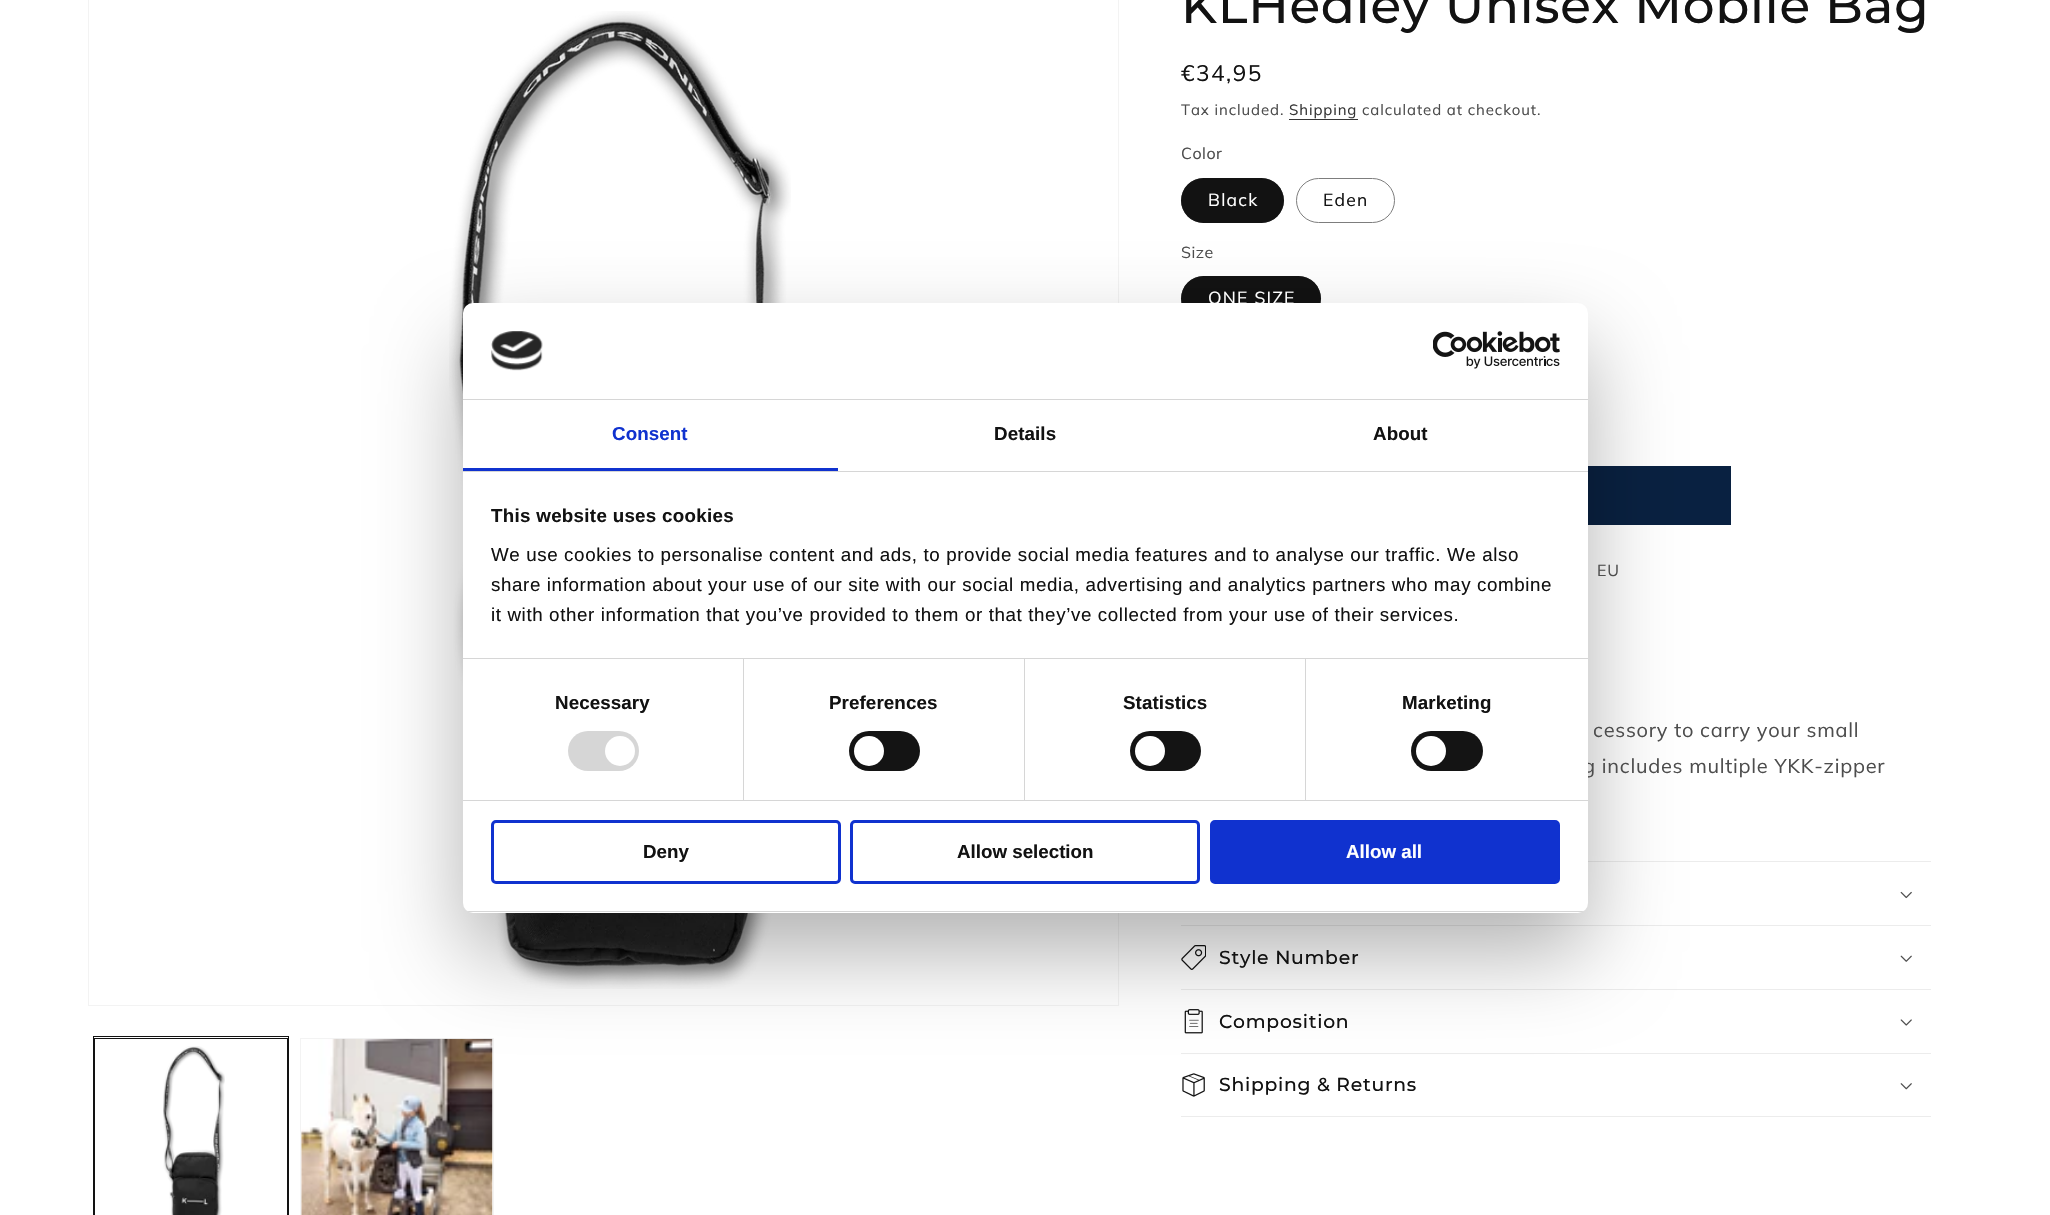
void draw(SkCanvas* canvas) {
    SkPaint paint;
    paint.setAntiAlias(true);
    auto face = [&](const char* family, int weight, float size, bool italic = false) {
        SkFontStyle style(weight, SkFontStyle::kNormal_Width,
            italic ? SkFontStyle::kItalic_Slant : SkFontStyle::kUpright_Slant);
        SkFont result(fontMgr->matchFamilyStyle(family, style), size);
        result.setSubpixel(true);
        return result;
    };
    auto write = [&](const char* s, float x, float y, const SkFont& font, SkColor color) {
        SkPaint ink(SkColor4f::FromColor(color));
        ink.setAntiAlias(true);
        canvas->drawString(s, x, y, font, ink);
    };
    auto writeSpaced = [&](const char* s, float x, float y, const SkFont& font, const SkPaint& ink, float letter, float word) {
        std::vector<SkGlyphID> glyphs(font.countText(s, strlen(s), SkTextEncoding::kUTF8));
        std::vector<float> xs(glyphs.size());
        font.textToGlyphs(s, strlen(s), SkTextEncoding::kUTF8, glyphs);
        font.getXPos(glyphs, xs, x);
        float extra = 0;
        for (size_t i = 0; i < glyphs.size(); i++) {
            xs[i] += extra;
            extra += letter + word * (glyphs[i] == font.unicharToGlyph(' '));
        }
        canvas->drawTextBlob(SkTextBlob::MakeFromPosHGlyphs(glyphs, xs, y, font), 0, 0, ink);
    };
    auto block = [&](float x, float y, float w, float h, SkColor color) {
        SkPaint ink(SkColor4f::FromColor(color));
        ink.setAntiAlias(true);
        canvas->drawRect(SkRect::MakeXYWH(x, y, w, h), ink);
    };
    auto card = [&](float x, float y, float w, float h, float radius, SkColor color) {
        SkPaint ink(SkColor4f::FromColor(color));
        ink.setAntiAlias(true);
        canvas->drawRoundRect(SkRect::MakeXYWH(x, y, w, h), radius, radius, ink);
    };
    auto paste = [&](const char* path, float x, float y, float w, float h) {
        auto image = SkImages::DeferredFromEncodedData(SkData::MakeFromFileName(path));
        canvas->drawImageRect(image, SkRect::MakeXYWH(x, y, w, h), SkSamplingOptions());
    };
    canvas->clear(SK_ColorWHITE);
    paint.setStyle(SkPaint::kStroke_Style);
    paint.setStrokeWidth(1);
    paint.setColor(SkColorSetRGB(243, 243, 243));
    canvas->drawRect(SkRect::MakeXYWH(88.5f, -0.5f, 1030, 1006), paint);
    paste("pic3.png", 449, 11, 342, 978);
    canvas->drawRect(SkRect::MakeXYWH(300.5f, 1038.5f, 193, 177), paint);
    paste("pic5.png", 301, 1038, 192, 177);
    card(1181, 178, 103, 45, 22.5f, SkColorSetRGB(18, 18, 18));
    paint.setColor(SkColorSetARGB(140, 18, 18, 18));
    canvas->drawRoundRect(SkRect::MakeXYWH(1181.5f, 178.5f, 102, 44), 22, 22, paint);
    paint.setColor(SkColorSetRGB(125, 125, 125));
    canvas->drawRoundRect(SkRect::MakeXYWH(1296.5f, 178.5f, 98, 44), 22, 22, paint);
    card(1181, 276, 140, 45, 22.5f, SkColorSetRGB(18, 18, 18));
    paint.setColor(SkColorSetARGB(140, 18, 18, 18));
    canvas->drawRoundRect(SkRect::MakeXYWH(1181.5f, 276.5f, 139, 44), 22, 22, paint);
    block(1588, 466, 143, 59, SkColorSetRGB(9, 33, 65));
    block(1588, 861, 343, 1, SkColorSetRGB(236, 236, 236));
    block(1181, 925, 750, 1, SkColorSetRGB(236, 236, 236));
    block(1181, 989, 750, 1, SkColorSetRGB(236, 236, 236));
    paste("pic7.png", 1181, 945, 25, 25);
    block(1181, 1053, 750, 1, SkColorSetRGB(236, 236, 236));
    paste("pic9.png", 1184, 1009, 19, 25);
    paste("pic11.png", 1182, 1073, 23, 24);
    paint.setStyle(SkPaint::kFill_Style);
    paint.setColor(SkColorSetARGB(77, 0, 0, 0));
    paint.setMaskFilter(SkMaskFilter::MakeBlur(kNormal_SkBlurStyle, 42.5f));
    canvas->drawRoundRect(SkRect::MakeXYWH(463, 343, 1125, 610), 10, 10, paint);
    paint.setMaskFilter(nullptr);
    auto kFont1 = face("Muli", 400, 20);
    paint.setColor(SkColorSetRGB(77, 77, 77));
    writeSpaced("g includes multiple YKK-zipper", 1583, 773, kFont1, paint, 0.75f, 0);
    card(463, 303, 1125, 610, 10, SK_ColorWHITE);
    block(463, 399, 1125, 1, SkColorSetRGB(214, 214, 214));
    paste("pic1.png", 491, 331, 52, 40);
    paste("pic2.png", 1433, 331, 127, 38);
    block(463, 471, 1125, 1, SkColorSetRGB(214, 214, 214));
    block(463, 468, 375, 3, SkColorSetRGB(16, 50, 207));
    auto kFont2 = face("Liberation Sans", 700, 18.75f);
    paint.setColor(SkColorSetRGB(16, 50, 207));
    writeSpaced("Consent", 612, 440, kFont2, paint, 0.1f, 0);
    paint.setColor(SkColorSetRGB(18, 18, 18));
    writeSpaced("Details", 994, 440, kFont2, paint, 0.1f, 0);
    writeSpaced("About", 1373, 440, kFont2, paint, 0.1f, 0);
    block(463, 658, 1125, 1, SkColorSetRGB(214, 214, 214));
    writeSpaced("This website uses cookies", 491, 522, kFont2, paint, 0.3f, 0);
    auto kFont3 = face("Liberation Sans", 400, 18.75f);
    writeSpaced("We use cookies to personalise content and ads, to provide social media features and to analyse our traffic. We also", 491, 561, kFont3, paint, 0.62f, 0);
    writeSpaced("share information about your use of our site with our social media, advertising and analytics partners who may combine", 491, 591, kFont3, paint, 0.62f, 0);
    writeSpaced("it with other information that you’ve provided to them or that they’ve collected from your use of their services.", 491, 621, kFont3, paint, 0.62f, 0);
    block(463, 800, 1125, 1, SkColorSetRGB(214, 214, 214));
    block(743, 659, 1, 141, SkColorSetRGB(214, 214, 214));
    writeSpaced("Necessary", 555, 709, kFont2, paint, 0.1f, 0);
    card(568, 731, 71, 40, 20, SkColorSetRGB(214, 214, 214));
    paint.setColor(SK_ColorWHITE);
    canvas->drawCircle(620, 751, 15, paint);
    block(1024, 659, 1, 141, SkColorSetRGB(214, 214, 214));
    paint.setColor(SkColorSetRGB(18, 18, 18));
    writeSpaced("Preferences", 829, 709, kFont2, paint, 0.1f, 0);
    card(849, 731, 71, 40, 20, SkColorSetRGB(20, 20, 20));
    paint.setColor(SK_ColorWHITE);
    canvas->drawCircle(869, 751, 15, paint);
    block(1305, 659, 1, 141, SkColorSetRGB(214, 214, 214));
    paint.setColor(SkColorSetRGB(18, 18, 18));
    writeSpaced("Statistics", 1123, 709, kFont2, paint, 0.1f, 0);
    card(1130, 731, 71, 40, 20, SkColorSetRGB(20, 20, 20));
    paint.setColor(SK_ColorWHITE);
    canvas->drawCircle(1150, 751, 15, paint);
    paint.setColor(SkColorSetRGB(18, 18, 18));
    writeSpaced("Marketing", 1402, 709, kFont2, paint, 0.1f, 0);
    card(1411, 731, 72, 40, 20, SkColorSetRGB(20, 20, 20));
    paint.setColor(SK_ColorWHITE);
    canvas->drawCircle(1431, 751, 15, paint);
    canvas->save();
    canvas->clipPath(SkPathBuilder().moveTo(473, 303).lineTo(1578, 303).cubicTo(1583.5f, 303, 1588, 307.5f, 1588, 313).lineTo(1588, 903).cubicTo(1588, 908.5f, 1583.5f, 913, 1578, 913).lineTo(473, 913).cubicTo(467.5f, 913, 463, 908.5f, 463, 903).lineTo(463, 313).cubicTo(463, 307.5f, 467.5f, 303, 473, 303).close().detach(), true);
    block(463, 911, 1125, 1, SkColorSetRGB(214, 214, 214));
    canvas->restore();
    paint.setStyle(SkPaint::kStroke_Style);
    paint.setStrokeWidth(3);
    paint.setColor(SkColorSetRGB(16, 50, 207));
    canvas->drawRoundRect(SkRect::MakeXYWH(492.5f, 821.5f, 347, 61), 3.5f, 3.5f, paint);
    write("Deny", 643, 858, kFont2, SkColorSetRGB(18, 18, 18));
    canvas->drawRoundRect(SkRect::MakeXYWH(851.5f, 821.5f, 347, 61), 3.5f, 3.5f, paint);
    write("Allow selection", 957, 858, kFont2, SkColorSetRGB(18, 18, 18));
    paint.setStyle(SkPaint::kFill_Style);
    canvas->drawRoundRect(SkRect::MakeXYWH(1211.5f, 821.5f, 347, 61), 3.5f, 3.5f, paint);
    paint.setStyle(SkPaint::kStroke_Style);
    canvas->drawRoundRect(SkRect::MakeXYWH(1211.5f, 821.5f, 347, 61), 3.5f, 3.5f, paint);
    write("Allow all", 1346, 858, kFont2, SK_ColorWHITE);
    paint.setStrokeWidth(1);
    paint.setColor(SkColorSetRGB(18, 18, 18));
    canvas->drawRect(SkRect::MakeXYWH(93.5f, 1036.5f, 195, 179), paint);
    canvas->drawRect(SkRect::MakeXYWH(94.5f, 1038.5f, 193, 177), paint);
    paste("pic4.png", 163, 1046, 62, 169);
    auto kFont4 = face("Montserrat", 500, 50);
    paint.setStyle(SkPaint::kFill_Style);
    writeSpaced("KLHedley Unisex Mobile Bag", 1181, 23, kFont4, paint, 0.75f, 0);
    auto kFont5 = face("Muli", 400, 22.5f);
    writeSpaced("€34,95", 1181, 81, kFont5, paint, 1.5f, 0);
    auto kFont6 = face("Muli", 400, 15);
    paint.setColor(SkColorSetRGB(77, 77, 77));
    writeSpaced("Tax included.", 1181, 115, kFont6, paint, 0.9f, 0);
    paint.setColor(SkColorSetRGB(54, 54, 54));
    writeSpaced("Shipping", 1289, 115, kFont6, paint, 0.9f, 0);
    block(1289, 119, 69, 1, SkColorSetRGB(54, 54, 54));
    paint.setColor(SkColorSetRGB(77, 77, 77));
    writeSpaced("calculated at checkout.", 1362, 115, kFont6, paint, 0.9f, 0);
    auto kFont7 = face("Muli", 400, 16);
    writeSpaced("Color", 1181, 159, kFont7, paint, 0.5f, 0);
    auto kFont8 = face("Muli", 400, 17.5f);
    paint.setColor(SK_ColorWHITE);
    writeSpaced("Black", 1208, 206, kFont8, paint, 1.25f, 0);
    paint.setColor(SkColorSetRGB(18, 18, 18));
    writeSpaced("Eden", 1323, 206, kFont8, paint, 1.25f, 0);
    paint.setColor(SkColorSetRGB(77, 77, 77));
    writeSpaced("Size", 1181, 258, kFont7, paint, 0.5f, 0);
    paint.setColor(SK_ColorWHITE);
    writeSpaced("ONE SIZE", 1208, 304, kFont8, paint, 1.25f, 0);
    paint.setColor(SkColorSetRGB(77, 77, 77));
    writeSpaced("EU", 1597, 576, kFont7, paint, 0.75f, 0);
    writeSpaced("cessory to carry your small", 1593, 737, kFont1, paint, 0.75f, 0);
    paste("pic6.png", 1900, 891, 12, 8);
    auto kFont9 = face("Montserrat", 500, 18.75f);
    paint.setColor(SkColorSetRGB(18, 18, 18));
    writeSpaced("Style Number", 1219, 964, kFont9, paint, 0.75f, 0);
    paste("pic8.png", 1900, 955, 12, 7);
    writeSpaced("Composition", 1219, 1028, kFont9, paint, 0.75f, 0);
    paste("pic10.png", 1900, 1019, 12, 7);
    block(1181, 1116, 750, 1, SkColorSetRGB(236, 236, 236));
    writeSpaced("Shipping & Returns", 1219, 1091, kFont9, paint, 0.75f, 0);
    paste("pic12.png", 1900, 1083, 12, 7);
}
